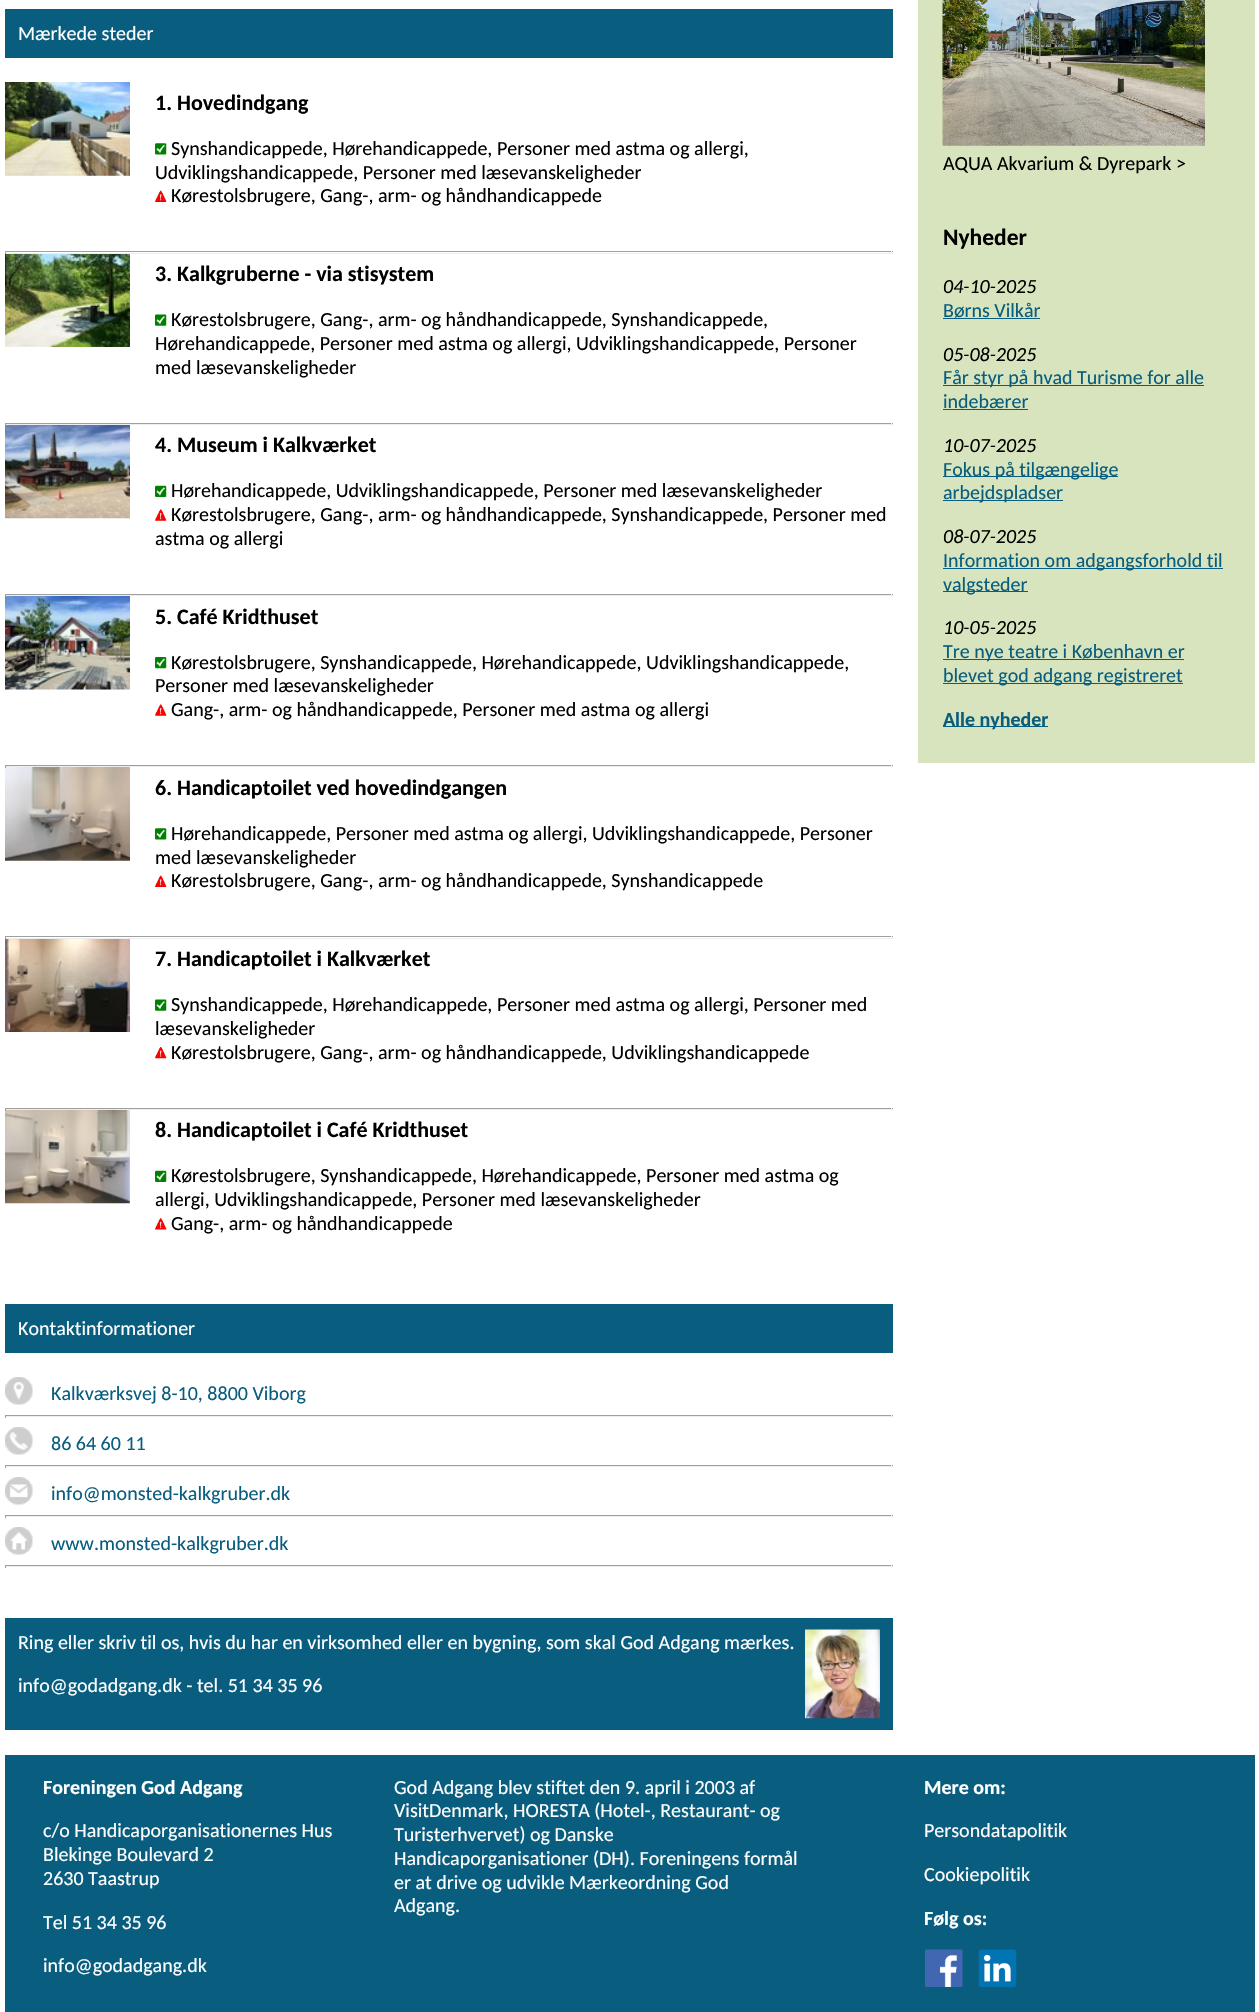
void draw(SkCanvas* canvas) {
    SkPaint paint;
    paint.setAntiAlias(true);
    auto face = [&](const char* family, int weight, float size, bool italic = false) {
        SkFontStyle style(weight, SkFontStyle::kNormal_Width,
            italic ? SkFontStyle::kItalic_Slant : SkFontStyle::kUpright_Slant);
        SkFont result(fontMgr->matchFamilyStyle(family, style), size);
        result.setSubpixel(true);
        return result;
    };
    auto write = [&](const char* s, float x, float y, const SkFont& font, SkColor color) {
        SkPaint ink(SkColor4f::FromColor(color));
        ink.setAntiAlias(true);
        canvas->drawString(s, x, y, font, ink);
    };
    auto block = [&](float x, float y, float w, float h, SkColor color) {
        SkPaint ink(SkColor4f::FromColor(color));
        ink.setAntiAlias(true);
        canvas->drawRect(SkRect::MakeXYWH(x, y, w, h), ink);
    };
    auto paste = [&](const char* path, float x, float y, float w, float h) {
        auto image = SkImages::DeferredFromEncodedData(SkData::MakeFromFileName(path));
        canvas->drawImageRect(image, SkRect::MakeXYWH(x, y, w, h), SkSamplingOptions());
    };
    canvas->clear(SK_ColorWHITE);
    block(5, 9, 888, 49, SkColorSetRGB(9, 93, 126));
    auto kFont1 = face("Carlito", 400, 20);
    write("Mærkede steder", 18, 40, kFont1, SK_ColorWHITE);
    paste("pic1.png", 5, 82, 125, 94);
    auto kFont2 = face("Carlito", 700, 22);
    write("1. Hovedindgang", 155, 110, kFont2, SK_ColorBLACK);
    paste("pic2.png", 155, 143, 12, 12);
    write("Synshandicappede, Hørehandicappede, Personer med astma og allergi,", 171, 155, kFont1, SK_ColorBLACK);
    write("Udviklingshandicappede, Personer med læsevanskeligheder", 155, 179, kFont1, SK_ColorBLACK);
    paste("pic3.png", 155, 190, 12, 12);
    write("Kørestolsbrugere, Gang-, arm- og håndhandicappede", 171, 202, kFont1, SK_ColorBLACK);
    block(5, 251, 888, 1, SkColorSetRGB(159, 159, 159));
    block(891, 251, 1, 3, SkColorSetRGB(238, 238, 238));
    block(5, 253, 888, 1, SkColorSetRGB(238, 238, 238));
    block(5, 251, 1, 3, SkColorSetRGB(159, 159, 159));
    paste("pic4.png", 5, 254, 125, 93);
    write("3. Kalkgruberne - via stisystem", 155, 281, kFont2, SK_ColorBLACK);
    paste("pic5.png", 155, 314, 12, 12);
    write("Kørestolsbrugere, Gang-, arm- og håndhandicappede, Synshandicappede,", 171, 326, kFont1, SK_ColorBLACK);
    write("Hørehandicappede, Personer med astma og allergi, Udviklingshandicappede, Personer", 155, 350, kFont1, SK_ColorBLACK);
    write("med læsevanskeligheder", 155, 374, kFont1, SK_ColorBLACK);
    block(5, 423, 888, 1, SkColorSetRGB(159, 159, 159));
    block(891, 423, 1, 3, SkColorSetRGB(238, 238, 238));
    block(5, 424, 888, 1, SkColorSetRGB(238, 238, 238));
    paste("pic6.png", 5, 425, 125, 94);
    block(5, 423, 1, 3, SkColorSetRGB(159, 159, 159));
    write("4. Museum i Kalkværket", 155, 452, kFont2, SK_ColorBLACK);
    paste("pic7.png", 155, 485, 12, 12);
    write("Hørehandicappede, Udviklingshandicappede, Personer med læsevanskeligheder", 171, 497, kFont1, SK_ColorBLACK);
    paste("pic8.png", 155, 509, 12, 12);
    write("Kørestolsbrugere, Gang-, arm- og håndhandicappede, Synshandicappede, Personer med", 171, 521, kFont1, SK_ColorBLACK);
    write("astma og allergi", 155, 545, kFont1, SK_ColorBLACK);
    block(5, 594, 888, 1, SkColorSetRGB(159, 159, 159));
    block(891, 594, 1, 3, SkColorSetRGB(238, 238, 238));
    block(5, 595, 888, 1, SkColorSetRGB(238, 238, 238));
    paste("pic9.png", 5, 596, 125, 94);
    block(5, 594, 1, 3, SkColorSetRGB(159, 159, 159));
    write("5. Café Kridthuset", 155, 624, kFont2, SK_ColorBLACK);
    paste("pic10.png", 155, 657, 12, 12);
    write("Kørestolsbrugere, Synshandicappede, Hørehandicappede, Udviklingshandicappede,", 171, 669, kFont1, SK_ColorBLACK);
    write("Personer med læsevanskeligheder", 155, 692, kFont1, SK_ColorBLACK);
    paste("pic8.png", 155, 704, 12, 12);
    write("Gang-, arm- og håndhandicappede, Personer med astma og allergi", 171, 716, kFont1, SK_ColorBLACK);
    block(5, 765, 888, 1, SkColorSetRGB(159, 159, 159));
    block(891, 765, 1, 3, SkColorSetRGB(238, 238, 238));
    block(5, 766, 888, 1, SkColorSetRGB(238, 238, 238));
    paste("pic11.png", 5, 767, 125, 94);
    block(5, 765, 1, 3, SkColorSetRGB(159, 159, 159));
    write("6. Handicaptoilet ved hovedindgangen", 155, 795, kFont2, SK_ColorBLACK);
    paste("pic2.png", 155, 828, 12, 12);
    write("Hørehandicappede, Personer med astma og allergi, Udviklingshandicappede, Personer", 171, 840, kFont1, SK_ColorBLACK);
    write("med læsevanskeligheder", 155, 864, kFont1, SK_ColorBLACK);
    paste("pic3.png", 155, 875, 12, 12);
    write("Kørestolsbrugere, Gang-, arm- og håndhandicappede, Synshandicappede", 171, 887, kFont1, SK_ColorBLACK);
    block(5, 936, 888, 1, SkColorSetRGB(159, 159, 159));
    block(891, 936, 1, 3, SkColorSetRGB(238, 238, 238));
    block(5, 938, 888, 1, SkColorSetRGB(238, 238, 238));
    block(5, 936, 1, 3, SkColorSetRGB(159, 159, 159));
    paste("pic12.png", 5, 939, 125, 93);
    write("7. Handicaptoilet i Kalkværket", 155, 966, kFont2, SK_ColorBLACK);
    paste("pic5.png", 155, 999, 12, 12);
    write("Synshandicappede, Hørehandicappede, Personer med astma og allergi, Personer med", 171, 1011, kFont1, SK_ColorBLACK);
    write("læsevanskeligheder", 155, 1035, kFont1, SK_ColorBLACK);
    paste("pic13.png", 155, 1047, 12, 12);
    write("Kørestolsbrugere, Gang-, arm- og håndhandicappede, Udviklingshandicappede", 171, 1059, kFont1, SK_ColorBLACK);
    block(5, 1108, 888, 1, SkColorSetRGB(159, 159, 159));
    block(891, 1108, 1, 3, SkColorSetRGB(238, 238, 238));
    block(5, 1109, 888, 1, SkColorSetRGB(238, 238, 238));
    paste("pic14.png", 5, 1110, 125, 94);
    block(5, 1108, 1, 3, SkColorSetRGB(159, 159, 159));
    write("8. Handicaptoilet i Café Kridthuset", 155, 1137, kFont2, SK_ColorBLACK);
    paste("pic7.png", 155, 1170, 12, 12);
    write("Kørestolsbrugere, Synshandicappede, Hørehandicappede, Personer med astma og", 171, 1182, kFont1, SK_ColorBLACK);
    write("allergi, Udviklingshandicappede, Personer med læsevanskeligheder", 155, 1206, kFont1, SK_ColorBLACK);
    paste("pic15.png", 155, 1218, 12, 12);
    write("Gang-, arm- og håndhandicappede", 171, 1230, kFont1, SK_ColorBLACK);
    block(5, 1304, 888, 49, SkColorSetRGB(9, 93, 126));
    write("Kontaktinformationer", 18, 1335, kFont1, SK_ColorWHITE);
    paste("pic16.png", 5, 1377, 28, 28);
    write("Kalkværksvej 8-10, 8800 Viborg", 51, 1400, kFont1, SkColorSetRGB(9, 93, 126));
    block(5, 1415, 888, 1, SkColorSetRGB(159, 159, 159));
    block(891, 1415, 1, 3, SkColorSetRGB(238, 238, 238));
    block(5, 1416, 888, 1, SkColorSetRGB(238, 238, 238));
    block(5, 1415, 1, 3, SkColorSetRGB(159, 159, 159));
    paste("pic17.png", 5, 1427, 28, 28);
    write("86 64 60 11", 51, 1450, kFont1, SkColorSetRGB(9, 93, 126));
    block(5, 1465, 888, 1, SkColorSetRGB(159, 159, 159));
    block(891, 1465, 1, 3, SkColorSetRGB(238, 238, 238));
    block(5, 1466, 888, 1, SkColorSetRGB(238, 238, 238));
    block(5, 1465, 1, 3, SkColorSetRGB(159, 159, 159));
    paste("pic18.png", 5, 1477, 28, 28);
    write("info@monsted-kalkgruber.dk", 51, 1500, kFont1, SkColorSetRGB(9, 93, 126));
    block(5, 1515, 888, 1, SkColorSetRGB(159, 159, 159));
    block(891, 1515, 1, 3, SkColorSetRGB(238, 238, 238));
    block(5, 1516, 888, 1, SkColorSetRGB(238, 238, 238));
    block(5, 1515, 1, 3, SkColorSetRGB(159, 159, 159));
    paste("pic19.png", 5, 1527, 28, 28);
    write("www.monsted-kalkgruber.dk", 51, 1550, kFont1, SkColorSetRGB(9, 93, 126));
    block(5, 1565, 888, 1, SkColorSetRGB(159, 159, 159));
    block(891, 1565, 1, 3, SkColorSetRGB(238, 238, 238));
    block(5, 1566, 888, 1, SkColorSetRGB(238, 238, 238));
    block(5, 1565, 1, 3, SkColorSetRGB(159, 159, 159));
    block(5, 1618, 888, 112, SkColorSetRGB(9, 93, 126));
    write("Ring eller skriv til os, hvis du har en virksomhed eller en bygning, som skal God Adgang mærkes.", 18, 1649, kFont1, SK_ColorWHITE);
    paste("pic20.png", 805, 1629, 75, 90);
    write("info@godadgang.dk - tel. 51 34 35 96", 18, 1692, kFont1, SK_ColorWHITE);
    block(918, 0, 337, 763, SkColorSetRGB(215, 228, 189));
    paste("pic21.png", 942, 0, 263, 146);
    write("AQUA Akvarium & Dyrepark >", 943, 170, kFont1, SK_ColorBLACK);
    auto kFont3 = face("Carlito", 700, 23.5f);
    write("Nyheder", 943, 245, kFont3, SK_ColorBLACK);
    auto kFont4 = face("Carlito", 400, 20, true);
    write("04-10-2025", 943, 293, kFont4, SK_ColorBLACK);
    write("Børns Vilkår", 943, 317, kFont1, SkColorSetRGB(9, 93, 126));
    block(943, 318, 97, 1, SkColorSetRGB(9, 93, 126));
    write("05-08-2025", 943, 361, kFont4, SK_ColorBLACK);
    block(943, 385, 261, 1, SkColorSetRGB(9, 93, 126));
    write("Får styr på hvad Turisme for alle", 943, 384, kFont1, SkColorSetRGB(9, 93, 126));
    write("indebærer", 943, 408, kFont1, SkColorSetRGB(9, 93, 126));
    block(943, 409, 85, 1, SkColorSetRGB(9, 93, 126));
    write("10-07-2025", 943, 452, kFont4, SK_ColorBLACK);
    block(943, 476, 175, 1, SkColorSetRGB(9, 93, 126));
    write("Fokus på tilgængelige", 943, 476, kFont1, SkColorSetRGB(9, 93, 126));
    block(943, 500, 120, 1, SkColorSetRGB(9, 93, 126));
    write("arbejdspladser", 943, 499, kFont1, SkColorSetRGB(9, 93, 126));
    write("08-07-2025", 943, 543, kFont4, SK_ColorBLACK);
    block(943, 568, 280, 1, SkColorSetRGB(9, 93, 126));
    write("Information om adgangsforhold til", 943, 567, kFont1, SkColorSetRGB(9, 93, 126));
    block(943, 591, 85, 1, SkColorSetRGB(9, 93, 126));
    write("valgsteder", 943, 591, kFont1, SkColorSetRGB(9, 93, 126));
    write("10-05-2025", 943, 634, kFont4, SK_ColorBLACK);
    block(943, 659, 241, 1, SkColorSetRGB(9, 93, 126));
    write("Tre nye teatre i København er", 943, 658, kFont1, SkColorSetRGB(9, 93, 126));
    block(943, 683, 240, 1, SkColorSetRGB(9, 93, 126));
    write("blevet god adgang registreret", 943, 682, kFont1, SkColorSetRGB(9, 93, 126));
    block(943, 726, 105, 1, SkColorSetRGB(9, 93, 126));
    auto kFont5 = face("Carlito", 700, 20);
    write("Alle nyheder", 943, 726, kFont5, SkColorSetRGB(9, 93, 126));
    block(5, 1755, 1250, 257, SkColorSetRGB(9, 93, 126));
    write("Foreningen God Adgang", 43, 1794, kFont5, SK_ColorWHITE);
    write("c/o Handicaporganisationernes Hus", 43, 1837, kFont1, SK_ColorWHITE);
    write("Blekinge Boulevard 2", 43, 1861, kFont1, SK_ColorWHITE);
    write("2630 Taastrup", 43, 1885, kFont1, SK_ColorWHITE);
    write("Tel 51 34 35 96", 43, 1929, kFont1, SK_ColorWHITE);
    write("info@godadgang.dk", 43, 1972, kFont1, SK_ColorWHITE);
    write("God Adgang blev stiftet den 9. april i 2003 af", 394, 1794, kFont1, SK_ColorWHITE);
    write("VisitDenmark, HORESTA (Hotel-, Restaurant- og", 394, 1817, kFont1, SK_ColorWHITE);
    write("Turisterhvervet) og Danske", 394, 1841, kFont1, SK_ColorWHITE);
    write("Handicaporganisationer (DH). Foreningens formål", 394, 1865, kFont1, SK_ColorWHITE);
    write("er at drive og udvikle Mærkeordning God", 394, 1889, kFont1, SK_ColorWHITE);
    write("Adgang.", 394, 1912, kFont1, SK_ColorWHITE);
    write("Mere om:", 924, 1794, kFont5, SK_ColorWHITE);
    write("Persondatapolitik", 924, 1837, kFont1, SK_ColorWHITE);
    write("Cookiepolitik", 924, 1881, kFont1, SK_ColorWHITE);
    write("Følg os:", 924, 1925, kFont5, SK_ColorWHITE);
    paste("pic22.png", 925, 1949, 38, 38);
    paste("pic23.png", 978, 1949, 39, 38);
}
